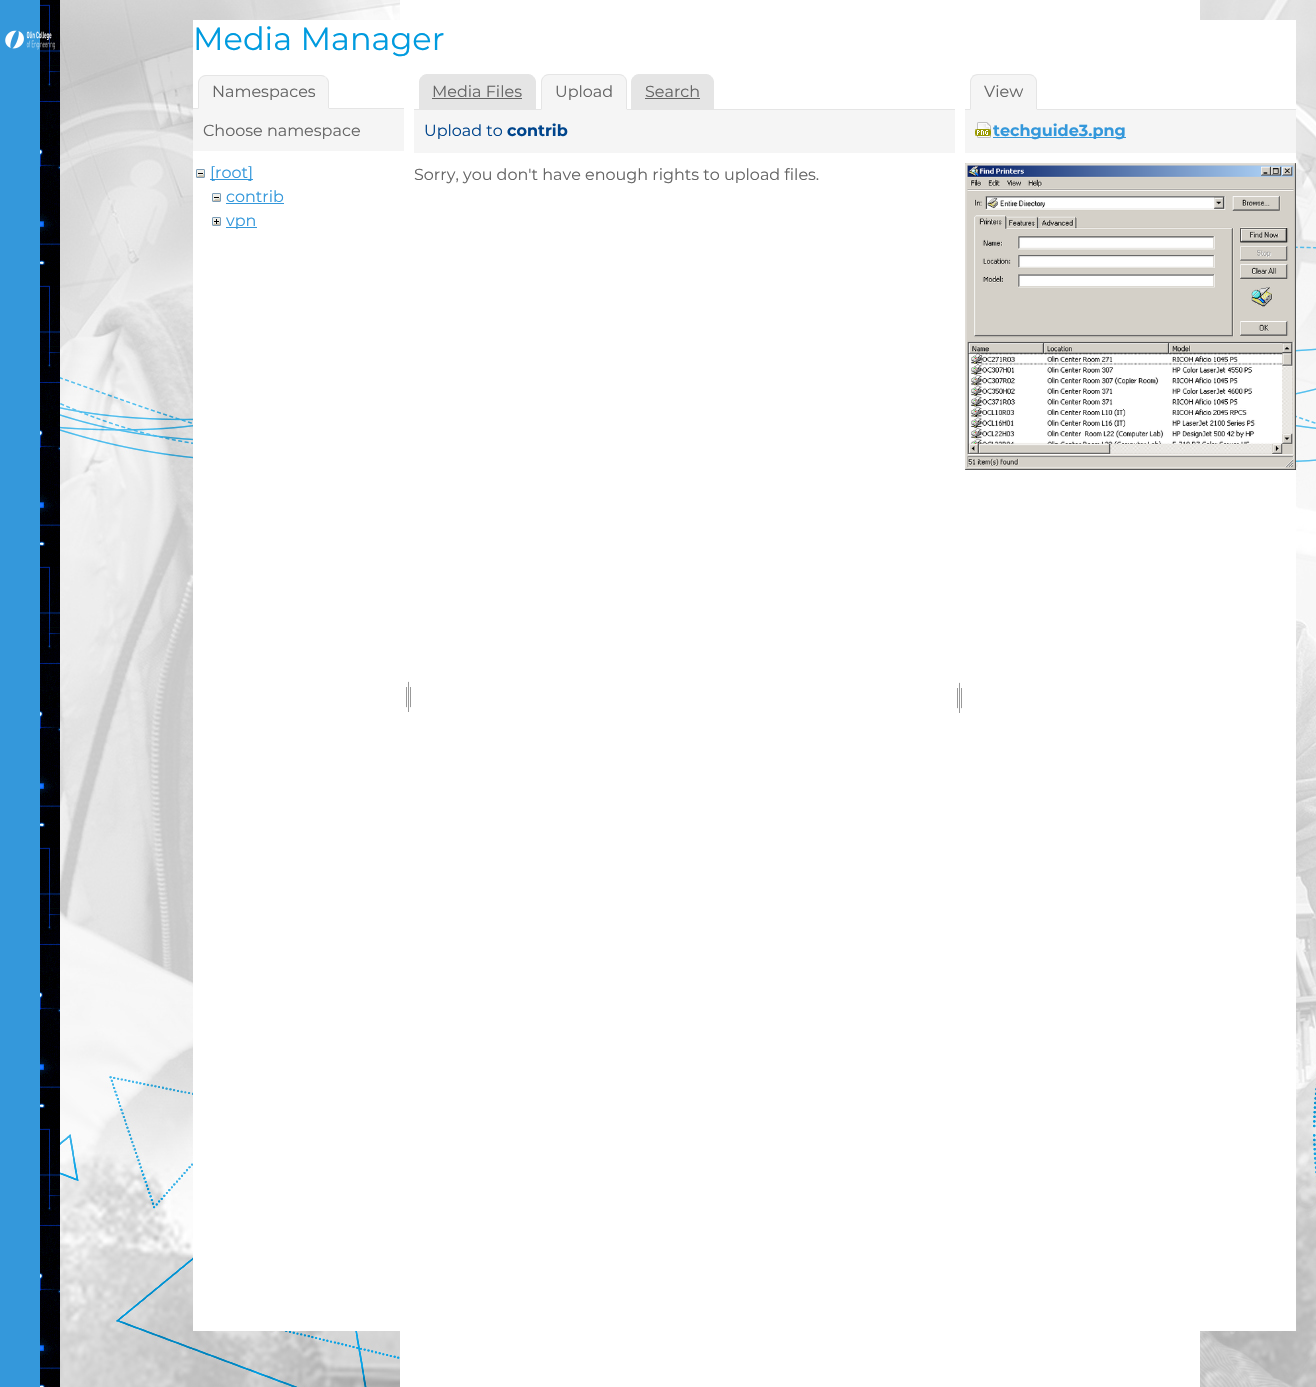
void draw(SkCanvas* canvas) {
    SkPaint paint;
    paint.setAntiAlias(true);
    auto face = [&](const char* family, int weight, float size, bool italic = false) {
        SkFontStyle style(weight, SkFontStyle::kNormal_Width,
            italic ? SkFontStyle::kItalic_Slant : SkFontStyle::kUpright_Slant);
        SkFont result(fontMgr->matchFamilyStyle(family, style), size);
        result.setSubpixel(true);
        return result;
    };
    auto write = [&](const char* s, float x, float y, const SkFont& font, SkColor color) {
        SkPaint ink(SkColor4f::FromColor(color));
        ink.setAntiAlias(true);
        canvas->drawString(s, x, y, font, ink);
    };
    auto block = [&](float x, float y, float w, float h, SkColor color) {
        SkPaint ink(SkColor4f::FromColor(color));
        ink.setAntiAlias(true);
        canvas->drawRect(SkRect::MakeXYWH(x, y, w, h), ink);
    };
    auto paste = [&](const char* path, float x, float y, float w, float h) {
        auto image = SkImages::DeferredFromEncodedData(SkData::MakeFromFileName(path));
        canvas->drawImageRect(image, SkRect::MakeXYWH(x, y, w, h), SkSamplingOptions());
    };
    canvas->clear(SK_ColorWHITE);
    paste("pic1.png", 60, 0, 1256, 1387);
    block(0, 0, 40, 1387, SkColorSetRGB(52, 152, 219));
    paste("pic2.png", 40, 0, 20, 1387);
    block(400, 0, 800, 1387, SK_ColorWHITE);
    paste("pic3.png", 5, 30, 50, 20);
    block(193, 20, 1103, 1311, SK_ColorWHITE);
    auto kFont1 = face("Montserrat", 400, 32);
    write("Media Manager", 193, 50, kFont1, SkColorSetRGB(0, 155, 223));
    block(193, 108, 211, 1, SkColorSetRGB(229, 229, 229));
    paint.setColor(SkColorSetRGB(245, 245, 245));
    canvas->drawPath(SkPathBuilder().moveTo(206, 75).lineTo(321, 75).cubicTo(325.5f, 75, 329, 78.5f, 329, 83).lineTo(329, 109).lineTo(198, 109).lineTo(198, 83).cubicTo(198, 78.5f, 201.5f, 75, 206, 75).close().detach(), paint);
    paint.setColor(SkColorSetRGB(229, 229, 229));
    canvas->drawPath(SkPathBuilder().moveTo(206, 75).cubicTo(204, 75, 202, 76, 200, 78).lineTo(201, 78).cubicTo(202, 77, 204, 76, 206, 76).lineTo(321, 76).cubicTo(323, 76, 325, 77, 326, 78).cubicTo(325, 76, 323, 75, 321, 75).close().detach(), paint);
    canvas->drawPath(SkPathBuilder().moveTo(329, 109).lineTo(329, 83).cubicTo(329, 81, 328, 79, 326.5f, 77.5f).lineTo(326, 78).cubicTo(327, 79, 328, 81, 328, 83).lineTo(328, 108).close().detach(), paint);
    paint.setColor(SkColorSetRGB(245, 245, 245));
    canvas->drawPath(SkPathBuilder().moveTo(329, 109).lineTo(328, 108).lineTo(199, 108).lineTo(198, 109).close().detach(), paint);
    paint.setColor(SkColorSetRGB(229, 229, 229));
    canvas->drawPath(SkPathBuilder().moveTo(198, 109).lineTo(199, 108).lineTo(199, 83).cubicTo(199, 81, 200, 79, 201, 78).lineTo(200.5f, 77.5f).cubicTo(199, 79, 198, 81, 198, 83).close().detach(), paint);
    auto kFont2 = face("Montserrat", 400, 16);
    write("Namespaces", 212, 97, kFont2, SkColorSetRGB(101, 101, 101));
    block(193, 109, 211, 42, SkColorSetRGB(245, 245, 245));
    write("Choose namespace", 203, 136, kFont2, SkColorSetRGB(101, 101, 101));
    paste("pic4.png", 196, 169, 9, 9);
    block(210, 179, 43, 1, SkColorSetRGB(52, 152, 219));
    write("[root]", 210, 178, kFont2, SkColorSetRGB(52, 152, 219));
    paste("pic4.png", 212, 193, 9, 9);
    write("contrib", 226, 202, kFont2, SkColorSetRGB(52, 152, 219));
    block(226, 203, 58, 1, SkColorSetRGB(52, 152, 219));
    paste("pic5.png", 212, 217, 9, 9);
    block(226, 227, 31, 1, SkColorSetRGB(52, 152, 219));
    write("vpn", 226, 226, kFont2, SkColorSetRGB(52, 152, 219));
    paste("pic6.png", 406, 681, 5, 31);
    canvas->drawPath(SkPathBuilder().moveTo(427, 74.5f).lineTo(528, 74.5f).cubicTo(532, 74.5f, 535.5f, 78, 535.5f, 82).lineTo(535.5f, 109.5f).lineTo(419.5f, 109.5f).lineTo(419.5f, 82).cubicTo(419.5f, 78, 423, 74.5f, 427, 74.5f).close().detach(), paint);
    paint.setStyle(SkPaint::kStroke_Style);
    paint.setStrokeWidth(1);
    canvas->drawPath(SkPathBuilder().moveTo(427, 74.5f).lineTo(528, 74.5f).cubicTo(532, 74.5f, 535.5f, 78, 535.5f, 82).lineTo(535.5f, 109.5f).lineTo(419.5f, 109.5f).lineTo(419.5f, 82).cubicTo(419.5f, 78, 423, 74.5f, 427, 74.5f).close().detach(), paint);
    write("Media Files", 432, 97, kFont2, SkColorSetRGB(101, 101, 101));
    block(432, 98, 90, 1, SkColorSetRGB(101, 101, 101));
    paint.setStyle(SkPaint::kFill_Style);
    canvas->drawPath(SkPathBuilder().moveTo(639, 74.5f).lineTo(706, 74.5f).cubicTo(710, 74.5f, 713.5f, 78, 713.5f, 82).lineTo(713.5f, 109.5f).lineTo(631.5f, 109.5f).lineTo(631.5f, 82).cubicTo(631.5f, 78, 635, 74.5f, 639, 74.5f).close().detach(), paint);
    paint.setStyle(SkPaint::kStroke_Style);
    canvas->drawPath(SkPathBuilder().moveTo(639, 74.5f).lineTo(706, 74.5f).cubicTo(710, 74.5f, 713.5f, 78, 713.5f, 82).lineTo(713.5f, 109.5f).lineTo(631.5f, 109.5f).lineTo(631.5f, 82).cubicTo(631.5f, 78, 635, 74.5f, 639, 74.5f).close().detach(), paint);
    block(414, 109, 541, 1, SkColorSetRGB(229, 229, 229));
    paint.setStyle(SkPaint::kFill_Style);
    paint.setColor(SkColorSetRGB(245, 245, 245));
    canvas->drawPath(SkPathBuilder().moveTo(549, 74).lineTo(619, 74).cubicTo(623.5f, 74, 627, 77.5f, 627, 82).lineTo(627, 110).lineTo(541, 110).lineTo(541, 82).cubicTo(541, 77.5f, 544.5f, 74, 549, 74).close().detach(), paint);
    paint.setColor(SkColorSetRGB(229, 229, 229));
    canvas->drawPath(SkPathBuilder().moveTo(549, 74).cubicTo(547, 74, 545, 75, 544, 76).lineTo(544, 77).cubicTo(545, 76, 547, 75, 549, 75).lineTo(619, 75).cubicTo(621, 75, 623, 76, 624, 77).lineTo(624, 76).cubicTo(623, 75, 621, 74, 619, 74).close().detach(), paint);
    canvas->drawPath(SkPathBuilder().moveTo(627, 110).lineTo(627, 82).cubicTo(627, 80, 626, 78, 624.5f, 76.5f).lineTo(624, 77).cubicTo(625, 78, 626, 80, 626, 82).lineTo(626, 109).close().detach(), paint);
    paint.setColor(SkColorSetRGB(245, 245, 245));
    canvas->drawPath(SkPathBuilder().moveTo(627, 110).lineTo(626, 109).lineTo(542, 109).lineTo(541, 110).close().detach(), paint);
    paint.setColor(SkColorSetRGB(229, 229, 229));
    canvas->drawPath(SkPathBuilder().moveTo(541, 110).lineTo(542, 109).lineTo(542, 82).cubicTo(542, 80, 543, 78, 544, 77).lineTo(543.5f, 76.5f).cubicTo(542, 78, 541, 80, 541, 82).close().detach(), paint);
    write("Upload", 555, 97, kFont2, SkColorSetRGB(101, 101, 101));
    write("Search", 645, 97, kFont2, SkColorSetRGB(101, 101, 101));
    block(645, 98, 55, 1, SkColorSetRGB(101, 101, 101));
    block(414, 110, 541, 43, SkColorSetRGB(245, 245, 245));
    write("Upload to", 424, 136, kFont2, SkColorSetRGB(0, 69, 140));
    auto kFont3 = face("Montserrat", 700, 16);
    write("contrib", 507, 136, kFont3, SkColorSetRGB(0, 69, 140));
    write("Sorry, you don't have enough rights to upload files.", 414, 180, kFont2, SkColorSetRGB(101, 101, 101));
    paste("pic6.png", 957, 682, 5, 31);
    block(965, 109, 331, 1, SkColorSetRGB(229, 229, 229));
    paint.setColor(SkColorSetRGB(245, 245, 245));
    canvas->drawPath(SkPathBuilder().moveTo(978, 74).lineTo(1029, 74).cubicTo(1033.5f, 74, 1037, 77.5f, 1037, 82).lineTo(1037, 110).lineTo(970, 110).lineTo(970, 82).cubicTo(970, 77.5f, 973.5f, 74, 978, 74).close().detach(), paint);
    paint.setColor(SkColorSetRGB(229, 229, 229));
    canvas->drawPath(SkPathBuilder().moveTo(978, 74).cubicTo(976, 74, 974, 75, 972, 76).lineTo(973, 77).cubicTo(974, 76, 976, 75, 978, 75).lineTo(1029, 75).cubicTo(1031, 75, 1033, 76, 1034, 77).lineTo(1034, 76).cubicTo(1033, 75, 1031, 74, 1029, 74).close().detach(), paint);
    canvas->drawPath(SkPathBuilder().moveTo(1037, 110).lineTo(1037, 82).cubicTo(1037, 80, 1036, 78, 1034.5f, 76.5f).lineTo(1034, 77).cubicTo(1035, 78, 1036, 80, 1036, 82).lineTo(1036, 109).close().detach(), paint);
    paint.setColor(SkColorSetRGB(245, 245, 245));
    canvas->drawPath(SkPathBuilder().moveTo(1037, 110).lineTo(1036, 109).lineTo(971, 109).lineTo(970, 110).close().detach(), paint);
    paint.setColor(SkColorSetRGB(229, 229, 229));
    canvas->drawPath(SkPathBuilder().moveTo(970, 110).lineTo(971, 109).lineTo(971, 82).cubicTo(971, 80, 972, 78, 973, 77).lineTo(972.5f, 76.5f).cubicTo(971, 78, 970, 80, 970, 82).close().detach(), paint);
    write("View", 984, 97, kFont2, SkColorSetRGB(101, 101, 101));
    block(965, 110, 331, 43, SkColorSetRGB(245, 245, 245));
    paste("pic7.png", 975, 122, 16, 16);
    block(993, 137, 133, 1, SkColorSetRGB(52, 152, 219));
    write("techguide3.png", 993, 136, kFont3, SkColorSetRGB(52, 152, 219));
    paste("pic8.png", 965, 163, 331, 307);
}
